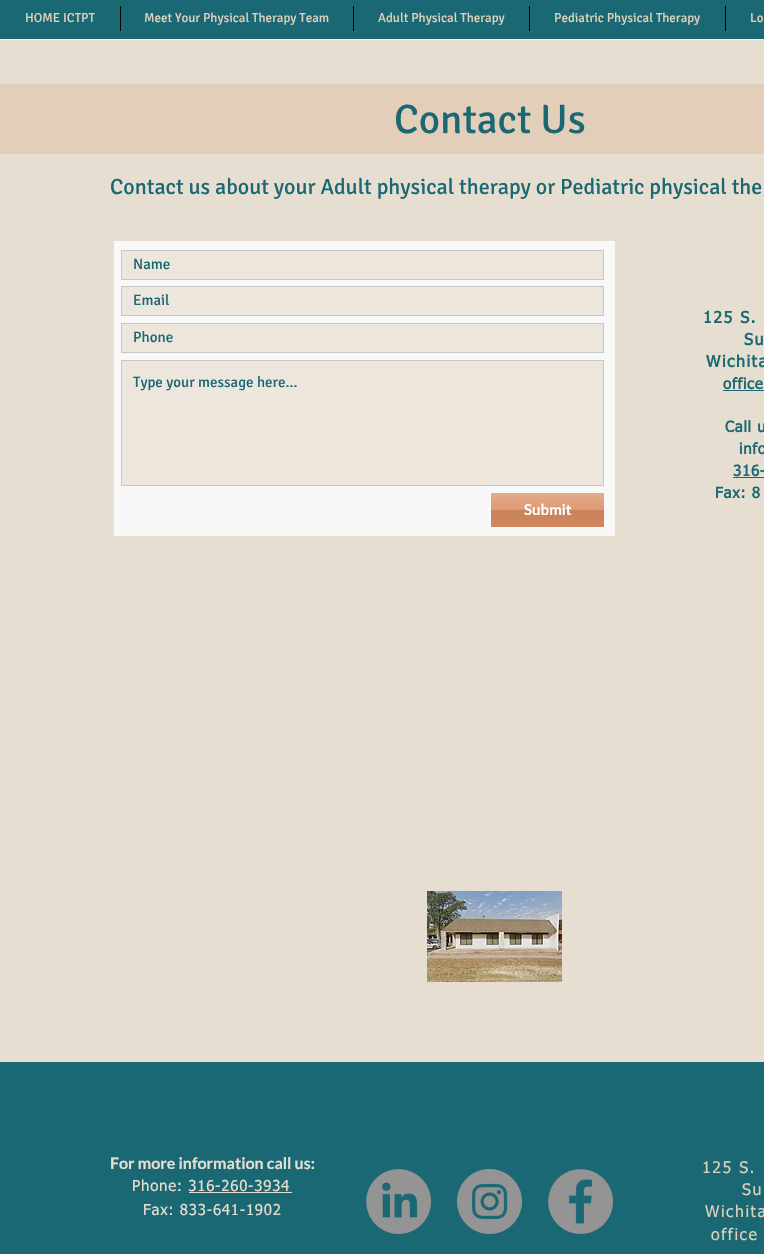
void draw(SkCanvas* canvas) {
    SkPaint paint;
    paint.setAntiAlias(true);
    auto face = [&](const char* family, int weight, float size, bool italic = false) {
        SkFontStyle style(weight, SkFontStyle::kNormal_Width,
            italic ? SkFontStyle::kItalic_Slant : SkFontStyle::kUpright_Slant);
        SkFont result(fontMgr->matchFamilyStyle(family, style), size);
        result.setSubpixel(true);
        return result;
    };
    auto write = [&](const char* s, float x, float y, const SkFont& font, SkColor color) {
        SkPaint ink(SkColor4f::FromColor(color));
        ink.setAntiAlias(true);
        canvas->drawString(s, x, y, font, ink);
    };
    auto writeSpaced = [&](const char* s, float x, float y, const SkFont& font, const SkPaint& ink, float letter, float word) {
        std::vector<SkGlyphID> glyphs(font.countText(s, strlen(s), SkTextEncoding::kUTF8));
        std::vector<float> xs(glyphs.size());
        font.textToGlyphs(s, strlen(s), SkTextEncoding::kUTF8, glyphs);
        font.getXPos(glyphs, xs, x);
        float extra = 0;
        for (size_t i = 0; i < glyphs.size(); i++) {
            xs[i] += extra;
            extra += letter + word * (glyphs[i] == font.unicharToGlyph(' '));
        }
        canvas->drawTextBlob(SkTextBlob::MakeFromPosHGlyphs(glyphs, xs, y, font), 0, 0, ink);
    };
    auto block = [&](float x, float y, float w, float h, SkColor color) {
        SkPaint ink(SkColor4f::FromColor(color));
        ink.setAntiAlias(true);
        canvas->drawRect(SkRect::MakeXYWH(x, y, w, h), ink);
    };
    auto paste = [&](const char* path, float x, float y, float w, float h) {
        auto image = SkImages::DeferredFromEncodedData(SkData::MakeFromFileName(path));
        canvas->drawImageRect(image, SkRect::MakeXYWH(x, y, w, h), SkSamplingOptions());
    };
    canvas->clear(SkColorSetRGB(230, 222, 209));
    block(0, 0, 764, 39, SkColorSetRGB(26, 104, 115));
    auto kFont1 = face("Signika", 400, 13);
    write("HOME ICTPT", 25, 22, kFont1, SkColorSetRGB(222, 209, 189));
    block(120, 6, 1, 25, SK_ColorBLACK);
    write("Meet Your Physical Therapy Team", 144, 22, kFont1, SkColorSetRGB(222, 209, 189));
    block(353, 6, 1, 25, SK_ColorBLACK);
    write("Adult Physical Therapy", 378, 22, kFont1, SkColorSetRGB(222, 209, 189));
    block(529, 6, 1, 25, SK_ColorBLACK);
    write("Pediatric Physical Therapy", 554, 22, kFont1, SkColorSetRGB(222, 209, 189));
    block(725, 6, 1, 25, SK_ColorBLACK);
    write("Lo", 750, 22, kFont1, SkColorSetRGB(222, 209, 189));
    block(0, 39, 764, 1, SkColorSetRGB(240, 236, 230));
    block(0, 84, 764, 70, SkColorSetRGB(227, 206, 186));
    auto kFont2 = face("Signika", 400, 41);
    write("Contact Us", 394, 133, kFont2, SkColorSetRGB(26, 104, 115));
    auto kFont3 = face("Signika", 400, 22);
    write("Contact us about your Adult physical therapy or Pediatric physical the", 110, 194, kFont3, SkColorSetRGB(26, 104, 115));
    block(114, 241, 501, 295, SkColorSetRGB(248, 248, 248));
    paint.setColor(SkColorSetRGB(236, 230, 221));
    canvas->drawRect(SkRect::MakeXYWH(121.5f, 250.5f, 482, 29), paint);
    paint.setStyle(SkPaint::kStroke_Style);
    paint.setStrokeWidth(1);
    paint.setColor(SkColorSetRGB(199, 199, 199));
    canvas->drawRect(SkRect::MakeXYWH(121.5f, 250.5f, 482, 29), paint);
    auto kFont4 = face("Signika", 400, 15);
    write("Name", 133, 269, kFont4, SkColorSetRGB(26, 104, 115));
    paint.setStyle(SkPaint::kFill_Style);
    paint.setColor(SkColorSetRGB(236, 230, 221));
    canvas->drawRect(SkRect::MakeXYWH(121.5f, 286.5f, 482, 29), paint);
    paint.setStyle(SkPaint::kStroke_Style);
    paint.setColor(SkColorSetRGB(199, 199, 199));
    canvas->drawRect(SkRect::MakeXYWH(121.5f, 286.5f, 482, 29), paint);
    write("Email", 133, 305, kFont4, SkColorSetRGB(26, 104, 115));
    paint.setStyle(SkPaint::kFill_Style);
    paint.setColor(SkColorSetRGB(236, 230, 221));
    canvas->drawRect(SkRect::MakeXYWH(121.5f, 323.5f, 482, 29), paint);
    paint.setStyle(SkPaint::kStroke_Style);
    paint.setColor(SkColorSetRGB(199, 199, 199));
    canvas->drawRect(SkRect::MakeXYWH(121.5f, 323.5f, 482, 29), paint);
    write("Phone", 133, 342, kFont4, SkColorSetRGB(26, 104, 115));
    paint.setStyle(SkPaint::kFill_Style);
    paint.setColor(SkColorSetRGB(236, 230, 221));
    canvas->drawRect(SkRect::MakeXYWH(121.5f, 360.5f, 482, 125), paint);
    paint.setStyle(SkPaint::kStroke_Style);
    paint.setColor(SkColorSetRGB(199, 199, 199));
    canvas->drawRect(SkRect::MakeXYWH(121.5f, 360.5f, 482, 125), paint);
    write("Type your message here...", 133, 387, kFont4, SkColorSetRGB(26, 104, 115));
    block(491, 493, 113, 34, SkColorSetRGB(217, 140, 96));
    paste("pic1.png", 491, 493, 113, 34);
    auto kFont5 = face("Lato", 700, 15);
    write("Submit", 524, 515, kFont5, SK_ColorWHITE);
    auto kFont6 = face("tahoma", 700, 16);
    paint.setStyle(SkPaint::kFill_Style);
    paint.setColor(SkColorSetRGB(26, 104, 115));
    writeSpaced("125 S.", 703, 323, kFont6, paint, 1.5f, 0);
    writeSpaced("Su", 744, 345, kFont6, paint, 1.5f, 0);
    writeSpaced("Wichita", 706, 367, kFont6, paint, 1.5f, 0);
    auto kFont7 = face("tahoma", 700, 15);
    writeSpaced("office", 723, 389, kFont7, paint, 0.75f, 0);
    block(723, 390, 41, 1, SkColorSetRGB(26, 104, 115));
    writeSpaced("Call u", 725, 432, kFont7, paint, 0.75f, 0);
    writeSpaced("info", 739, 454, kFont7, paint, 0.75f, 0);
    writeSpaced("316-", 733, 476, kFont7, paint, 0.75f, 0);
    block(733, 477, 31, 1, SkColorSetRGB(26, 104, 115));
    writeSpaced("Fax: 8", 715, 498, kFont7, paint, 0.75f, 0);
    paste("pic2.png", 427, 891, 135, 91);
    block(0, 1062, 764, 192, SkColorSetRGB(26, 104, 115));
    auto kFont8 = face("Lato", 700, 16);
    write("For more information call us:", 110, 1169, kFont8, SkColorSetRGB(230, 222, 209));
    auto kFont9 = face("tahoma", 400, 15);
    paint.setColor(SkColorSetRGB(230, 222, 209));
    writeSpaced("Phone: 316-260-3934", 132, 1191, kFont9, paint, 0.75f, 0);
    block(189, 1192, 103, 1, SkColorSetRGB(230, 222, 209));
    writeSpaced("Fax: 833-641-1902", 143, 1215, kFont9, paint, 0.75f, 0);
    paste("pic3.png", 366, 1169, 65, 65);
    paste("pic4.png", 457, 1169, 65, 65);
    paste("pic5.png", 548, 1169, 65, 65);
    auto kFont10 = face("tahoma", 400, 16);
    paint.setColor(SkColorSetRGB(222, 209, 189));
    writeSpaced("125 S.", 702, 1173, kFont10, paint, 1.5f, 0);
    writeSpaced("Su", 742, 1195, kFont10, paint, 1.5f, 0);
    writeSpaced("Wichita", 705, 1217, kFont10, paint, 1.5f, 0);
    writeSpaced("office", 711, 1240, kFont10, paint, 1.5f, 0);
}
